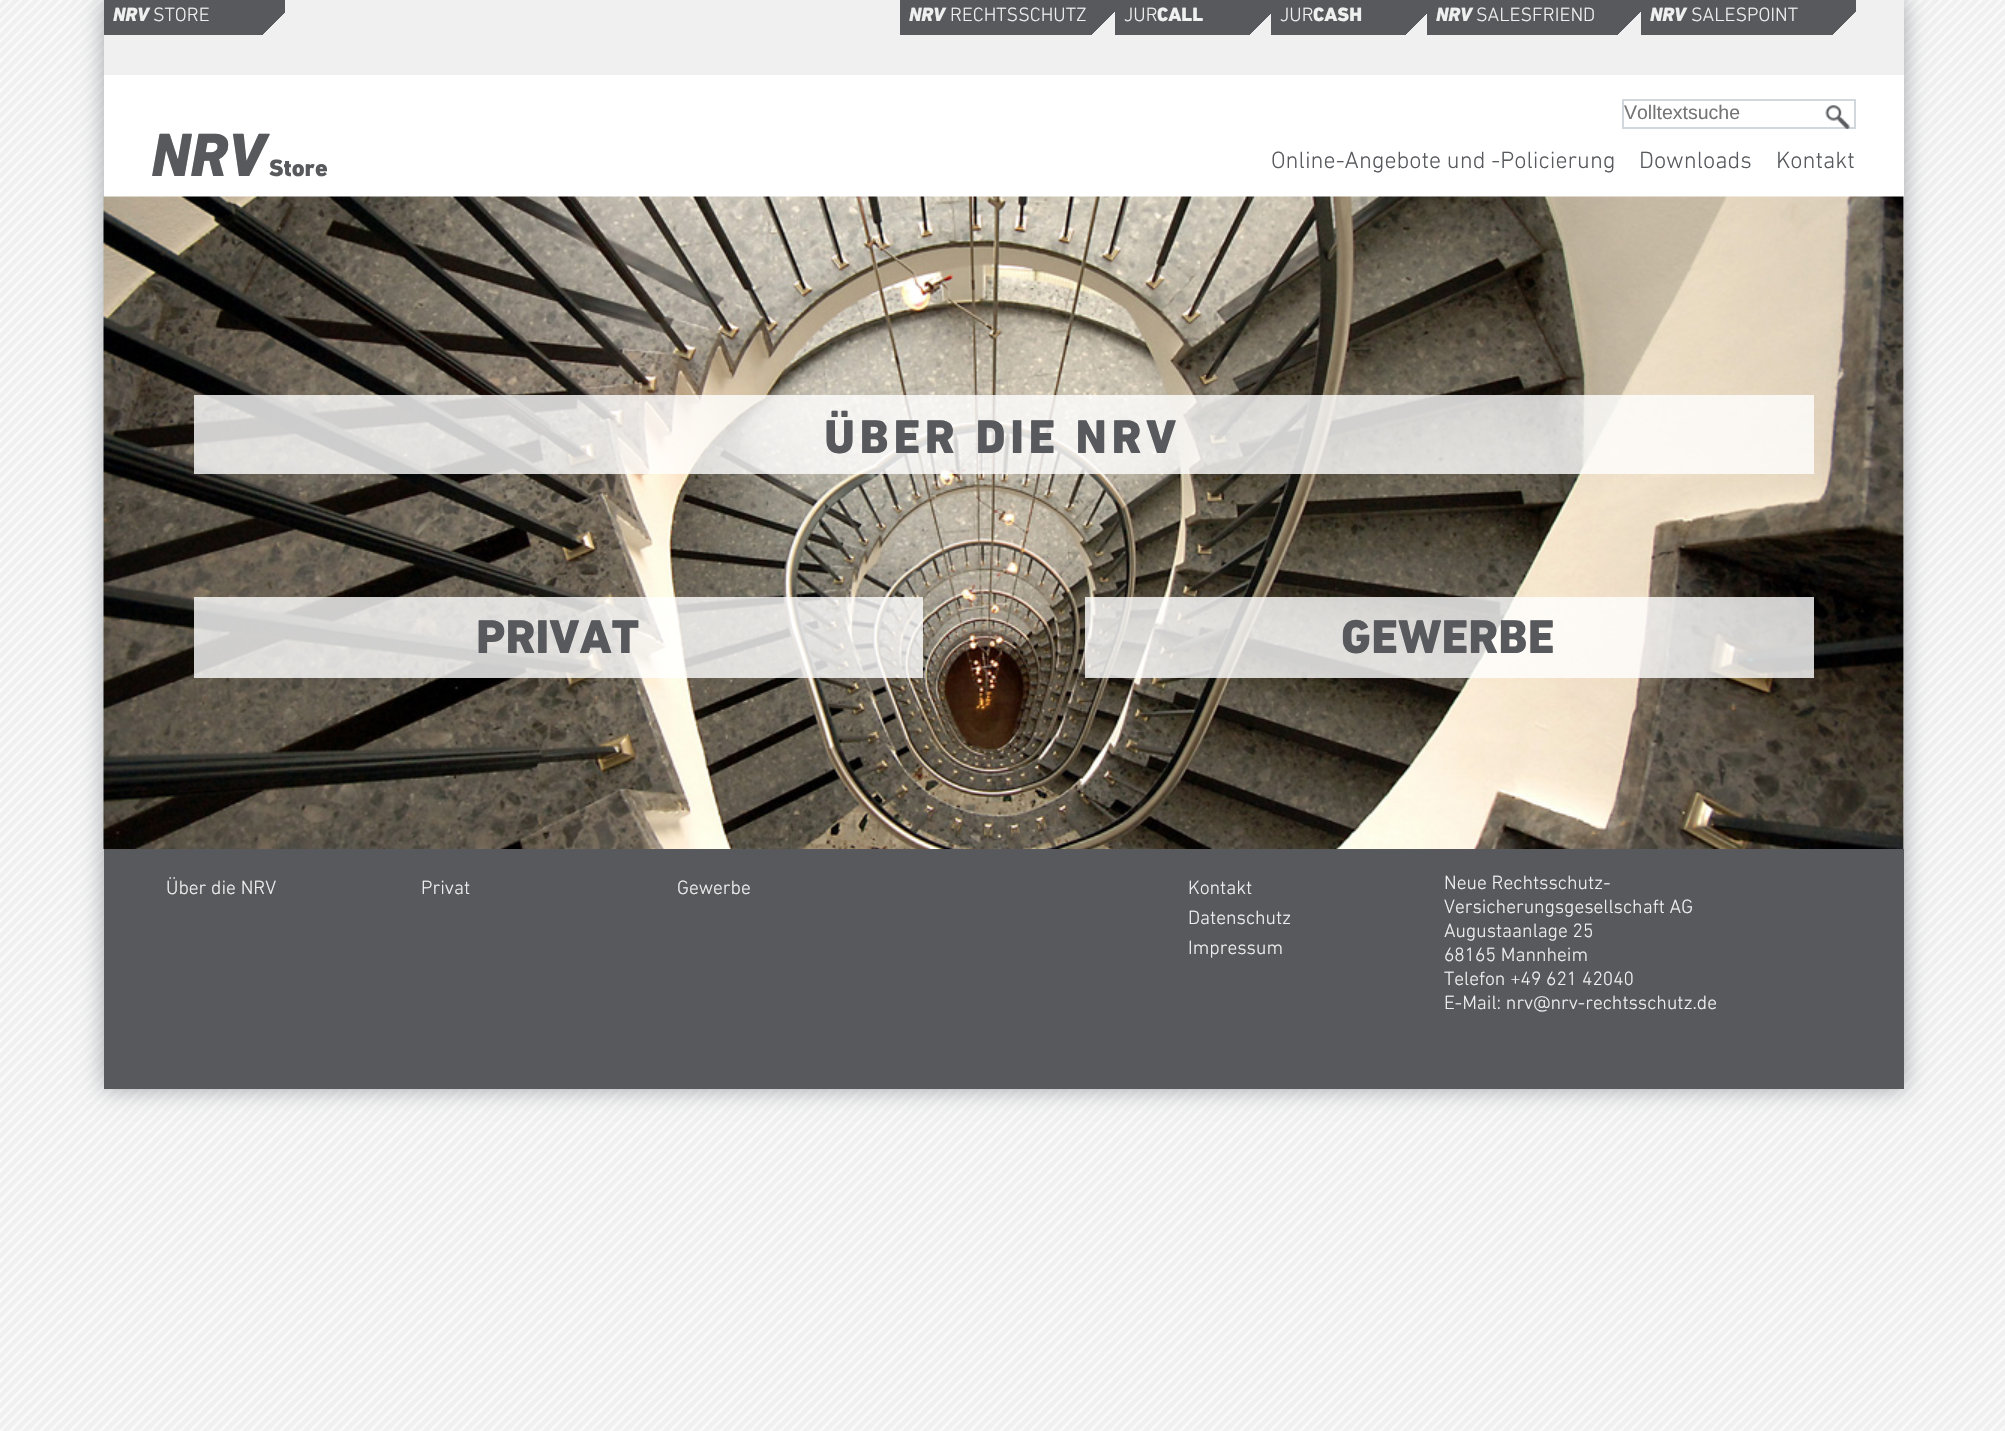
void draw(SkCanvas* canvas) {
    SkPaint paint;
    paint.setAntiAlias(true);
    auto face = [&](const char* family, int weight, float size, bool italic = false) {
        SkFontStyle style(weight, SkFontStyle::kNormal_Width,
            italic ? SkFontStyle::kItalic_Slant : SkFontStyle::kUpright_Slant);
        SkFont result(fontMgr->matchFamilyStyle(family, style), size);
        result.setSubpixel(true);
        return result;
    };
    auto write = [&](const char* s, float x, float y, const SkFont& font, SkColor color) {
        SkPaint ink(SkColor4f::FromColor(color));
        ink.setAntiAlias(true);
        canvas->drawString(s, x, y, font, ink);
    };
    auto writeSpaced = [&](const char* s, float x, float y, const SkFont& font, const SkPaint& ink, float letter, float word) {
        std::vector<SkGlyphID> glyphs(font.countText(s, strlen(s), SkTextEncoding::kUTF8));
        std::vector<float> xs(glyphs.size());
        font.textToGlyphs(s, strlen(s), SkTextEncoding::kUTF8, glyphs);
        font.getXPos(glyphs, xs, x);
        float extra = 0;
        for (size_t i = 0; i < glyphs.size(); i++) {
            xs[i] += extra;
            extra += letter + word * (glyphs[i] == font.unicharToGlyph(' '));
        }
        canvas->drawTextBlob(SkTextBlob::MakeFromPosHGlyphs(glyphs, xs, y, font), 0, 0, ink);
    };
    auto block = [&](float x, float y, float w, float h, SkColor color) {
        SkPaint ink(SkColor4f::FromColor(color));
        ink.setAntiAlias(true);
        canvas->drawRect(SkRect::MakeXYWH(x, y, w, h), ink);
    };
    auto paste = [&](const char* path, float x, float y, float w, float h) {
        auto image = SkImages::DeferredFromEncodedData(SkData::MakeFromFileName(path));
        canvas->drawImageRect(image, SkRect::MakeXYWH(x, y, w, h), SkSamplingOptions());
    };
    canvas->clear(SkColorSetRGB(240, 240, 240));
    paste("pic1.png", 0, 0, 2005, 1431);
    paint.setColor(SkColorSetRGB(160, 165, 170));
    paint.setMaskFilter(SkMaskFilter::MakeBlur(kNormal_SkBlurStyle, 11));
    canvas->drawRect(SkRect::MakeXYWH(104, 0, 1800, 1089), paint);
    paint.setMaskFilter(nullptr);
    block(104, 75, 1800, 774, SK_ColorWHITE);
    block(104, 0, 1800, 75, SkColorSetRGB(240, 240, 240));
    {
        const SkColor colors[] = {SkColorSetRGB(240, 240, 240), SkColorSetRGB(87, 89, 93)};
        const float stops[] = {0.1f, 0.1f};
        const SkPoint ends[] = {{248, 71}, {140, -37}};
        paint.setShader(SkGradientShader::MakeLinear(ends, colors, stops, 2, SkTileMode::kClamp));
        paint.setAlpha(255);
    }
    canvas->drawRect(SkRect::MakeXYWH(104, 0, 181, 35), paint);
    auto kFont1 = face("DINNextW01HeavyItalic", 900, 19.5f);
    write("NRV", 113, 21, kFont1, SkColorSetRGB(240, 240, 240));
    auto kFont2 = face("DIN Next", 300, 19.5f);
    write("STORE", 153, 21, kFont2, SkColorSetRGB(240, 240, 240));
    {
        const SkColor colors[] = {SkColorSetRGB(240, 240, 240), SkColorSetRGB(87, 89, 93)};
        const float stops[] = {0.09f, 0.09f};
        const SkPoint ends[] = {{1070, 79}, {945, -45}};
        paint.setShader(SkGradientShader::MakeLinear(ends, colors, stops, 2, SkTileMode::kClamp));
        paint.setAlpha(255);
    }
    canvas->drawRect(SkRect::MakeXYWH(900, 0, 215, 35), paint);
    write("NRV", 909, 21, kFont1, SkColorSetRGB(240, 240, 240));
    write("RECHTSSCHUTZ", 950, 21, kFont2, SkColorSetRGB(240, 240, 240));
    {
        const SkColor colors[] = {SkColorSetRGB(240, 240, 240), SkColorSetRGB(87, 89, 93)};
        const float stops[] = {0.11f, 0.11f};
        const SkPoint ends[] = {{1240, 65}, {1145, -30}};
        paint.setShader(SkGradientShader::MakeLinear(ends, colors, stops, 2, SkTileMode::kClamp));
        paint.setAlpha(255);
    }
    canvas->drawRect(SkRect::MakeXYWH(1115, 0, 156, 35), paint);
    write("JUR", 1124, 21, kFont2, SkColorSetRGB(240, 240, 240));
    auto kFont3 = face("DIN Next", 900, 19.5f);
    write("CALL", 1157, 21, kFont3, SkColorSetRGB(240, 240, 240));
    {
        const SkColor colors[] = {SkColorSetRGB(240, 240, 240), SkColorSetRGB(87, 89, 93)};
        const float stops[] = {0.11f, 0.11f};
        const SkPoint ends[] = {{1396, 65}, {1301, -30}};
        paint.setShader(SkGradientShader::MakeLinear(ends, colors, stops, 2, SkTileMode::kClamp));
        paint.setAlpha(255);
    }
    canvas->drawRect(SkRect::MakeXYWH(1271, 0, 156, 35), paint);
    write("JUR", 1280, 21, kFont2, SkColorSetRGB(240, 240, 240));
    write("CASH", 1313, 21, kFont3, SkColorSetRGB(240, 240, 240));
    {
        const SkColor colors[] = {SkColorSetRGB(240, 240, 240), SkColorSetRGB(87, 89, 93)};
        const float stops[] = {0.09f, 0.09f};
        const SkPoint ends[] = {{1596, 79}, {1472, -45}};
        paint.setShader(SkGradientShader::MakeLinear(ends, colors, stops, 2, SkTileMode::kClamp));
        paint.setAlpha(255);
    }
    canvas->drawRect(SkRect::MakeXYWH(1427, 0, 214, 35), paint);
    write("NRV", 1436, 21, kFont1, SkColorSetRGB(240, 240, 240));
    write("SALESFRIEND", 1476, 21, kFont2, SkColorSetRGB(240, 240, 240));
    {
        const SkColor colors[] = {SkColorSetRGB(240, 240, 240), SkColorSetRGB(87, 89, 93)};
        const float stops[] = {0.09f, 0.09f};
        const SkPoint ends[] = {{1811, 79}, {1686, -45}};
        paint.setShader(SkGradientShader::MakeLinear(ends, colors, stops, 2, SkTileMode::kClamp));
        paint.setAlpha(255);
    }
    canvas->drawRect(SkRect::MakeXYWH(1641, 0, 215, 35), paint);
    write("NRV", 1650, 21, kFont1, SkColorSetRGB(240, 240, 240));
    write("SALESPOINT", 1691, 21, kFont2, SkColorSetRGB(240, 240, 240));
    auto kFont4 = face("DINNextW01HeavyItalic", 900, 62);
    write("NRV", 151, 176, kFont4, SkColorSetRGB(87, 89, 93));
    auto kFont5 = face("DIN Next", 900, 24);
    write("Store", 269, 176, kFont5, SkColorSetRGB(87, 89, 93));
    paint.setStyle(SkPaint::kStroke_Style);
    paint.setStrokeWidth(2);
    paint.setShader(nullptr);
    paint.setColor(SkColorSetRGB(210, 215, 220));
    canvas->drawRect(SkRect::MakeXYWH(1623, 100, 232, 28), paint);
    auto kFont6 = face("Liberation Sans", 400, 19.5f);
    write("Volltextsuche", 1624, 119, kFont6, SkColorSetRGB(117, 117, 117));
    paste("pic2.png", 1825, 105, 25, 24);
    auto kFont7 = face("DIN Next", 300, 24);
    write("Online-Angebote und -Policierung", 1271, 168, kFont7, SkColorSetRGB(87, 89, 93));
    write("Downloads", 1639, 168, kFont7, SkColorSetRGB(87, 89, 93));
    write("Kontakt", 1776, 168, kFont7, SkColorSetRGB(87, 89, 93));
    paste("pic3.png", 103, 196, 1801, 653);
    block(194, 395, 1620, 79, SkColorSetARGB(204, 255, 255, 255));
    auto kFont8 = face("DIN Next", 900, 48);
    paint.setStyle(SkPaint::kFill_Style);
    paint.setColor(SkColorSetRGB(87, 89, 93));
    writeSpaced("ÜBER DIE NRV", 824, 453, kFont8, paint, 4.5f, 0);
    block(194, 597, 729, 81, SkColorSetARGB(204, 255, 255, 255));
    write("PRIVAT", 476, 653, kFont8, SkColorSetRGB(87, 89, 93));
    block(1085, 597, 729, 81, SkColorSetARGB(204, 255, 255, 255));
    write("GEWERBE", 1341, 653, kFont8, SkColorSetRGB(87, 89, 93));
    block(104, 849, 1800, 240, SkColorSetRGB(87, 89, 93));
    write("Über die NRV", 166, 894, kFont2, SkColorSetRGB(240, 240, 240));
    write("Privat", 421, 894, kFont2, SkColorSetRGB(240, 240, 240));
    write("Gewerbe", 677, 894, kFont2, SkColorSetRGB(240, 240, 240));
    write("Kontakt", 1188, 894, kFont2, SkColorSetRGB(240, 240, 240));
    write("Datenschutz", 1188, 924, kFont2, SkColorSetRGB(240, 240, 240));
    write("Impressum", 1188, 954, kFont2, SkColorSetRGB(240, 240, 240));
    write("Neue Rechtsschutz-", 1444, 889, kFont2, SkColorSetRGB(240, 240, 240));
    write("Versicherungsgesellschaft AG", 1444, 913, kFont2, SkColorSetRGB(240, 240, 240));
    write("Augustaanlage 25", 1444, 937, kFont2, SkColorSetRGB(240, 240, 240));
    write("68165 Mannheim", 1444, 961, kFont2, SkColorSetRGB(240, 240, 240));
    write("Telefon +49 621 42040", 1444, 985, kFont2, SkColorSetRGB(240, 240, 240));
    write("E-Mail: nrv@nrv-rechtsschutz.de", 1444, 1009, kFont2, SkColorSetRGB(240, 240, 240));
}
